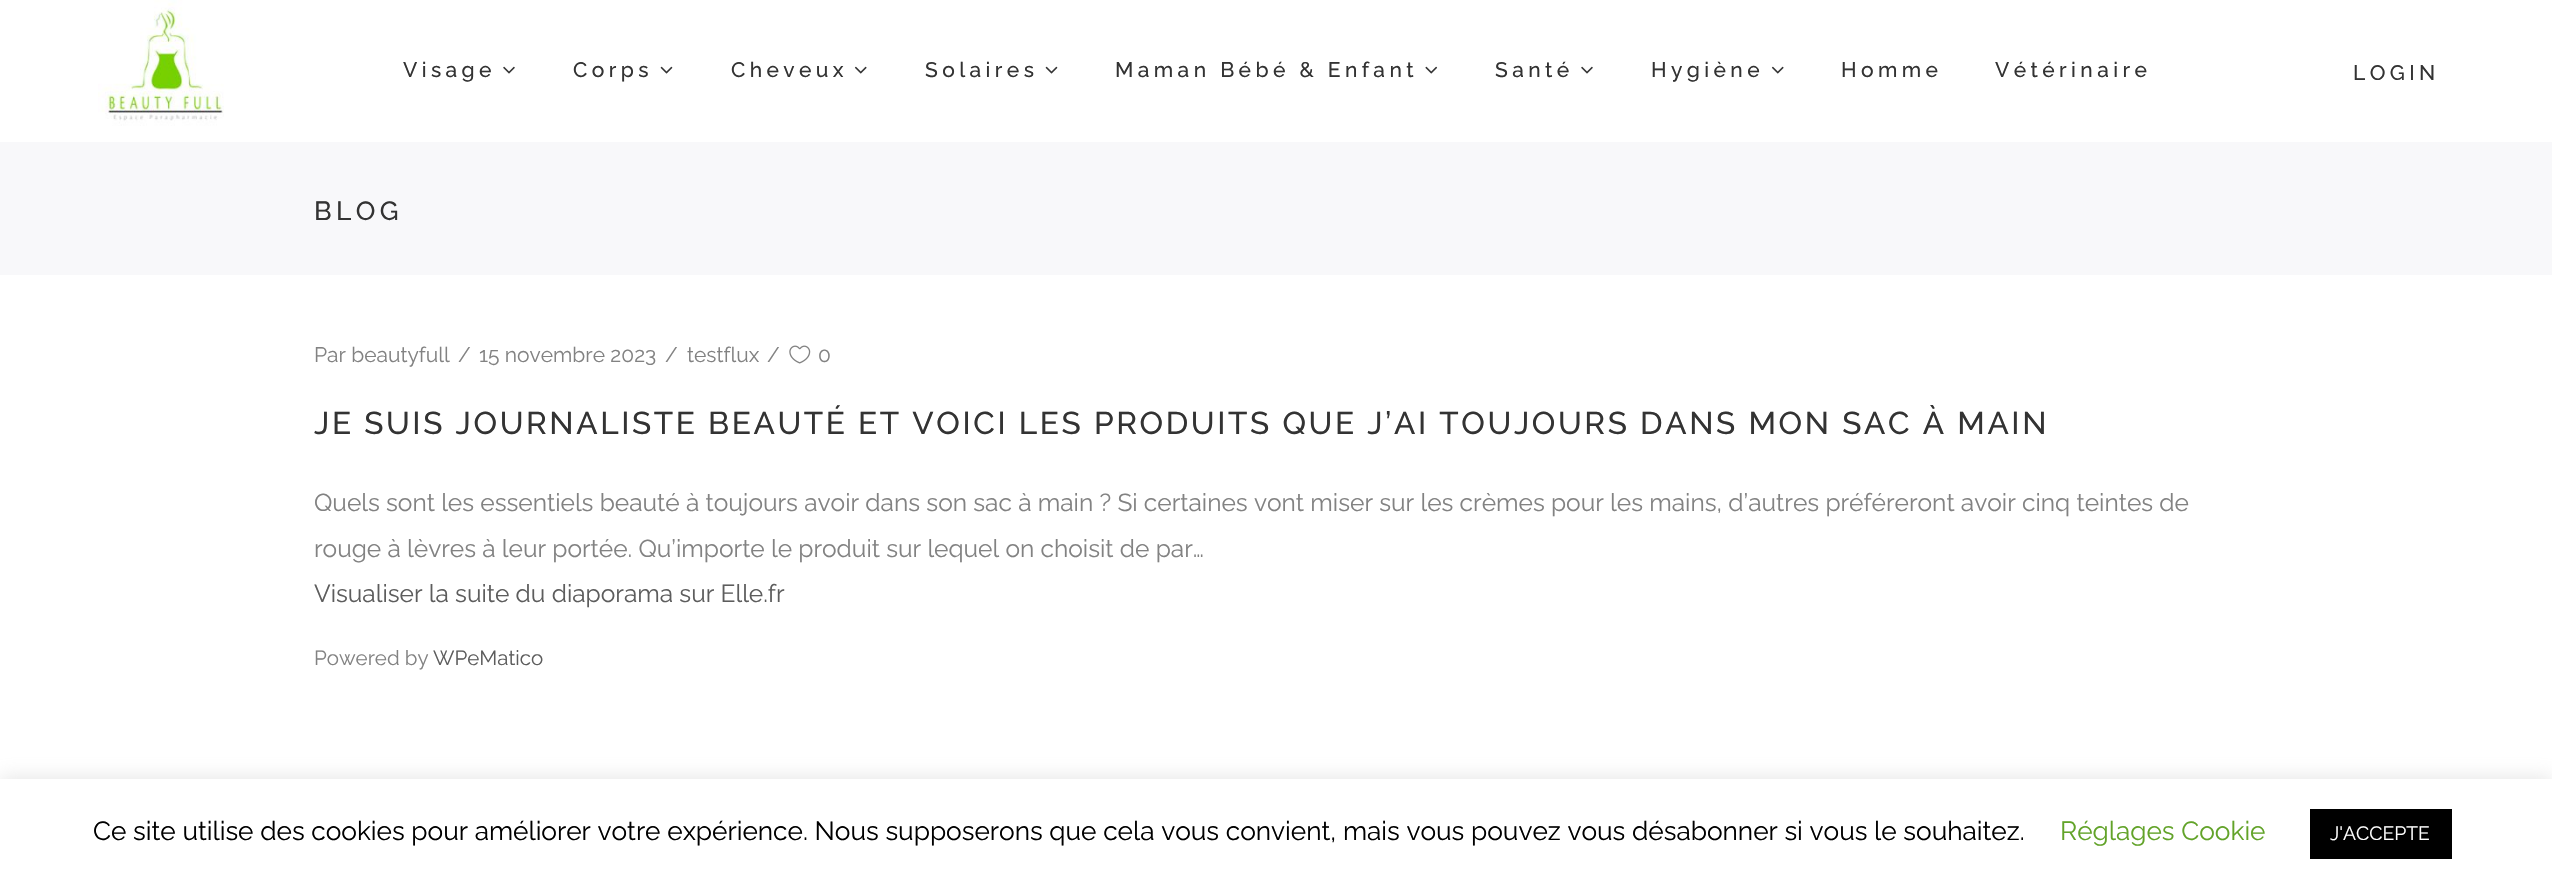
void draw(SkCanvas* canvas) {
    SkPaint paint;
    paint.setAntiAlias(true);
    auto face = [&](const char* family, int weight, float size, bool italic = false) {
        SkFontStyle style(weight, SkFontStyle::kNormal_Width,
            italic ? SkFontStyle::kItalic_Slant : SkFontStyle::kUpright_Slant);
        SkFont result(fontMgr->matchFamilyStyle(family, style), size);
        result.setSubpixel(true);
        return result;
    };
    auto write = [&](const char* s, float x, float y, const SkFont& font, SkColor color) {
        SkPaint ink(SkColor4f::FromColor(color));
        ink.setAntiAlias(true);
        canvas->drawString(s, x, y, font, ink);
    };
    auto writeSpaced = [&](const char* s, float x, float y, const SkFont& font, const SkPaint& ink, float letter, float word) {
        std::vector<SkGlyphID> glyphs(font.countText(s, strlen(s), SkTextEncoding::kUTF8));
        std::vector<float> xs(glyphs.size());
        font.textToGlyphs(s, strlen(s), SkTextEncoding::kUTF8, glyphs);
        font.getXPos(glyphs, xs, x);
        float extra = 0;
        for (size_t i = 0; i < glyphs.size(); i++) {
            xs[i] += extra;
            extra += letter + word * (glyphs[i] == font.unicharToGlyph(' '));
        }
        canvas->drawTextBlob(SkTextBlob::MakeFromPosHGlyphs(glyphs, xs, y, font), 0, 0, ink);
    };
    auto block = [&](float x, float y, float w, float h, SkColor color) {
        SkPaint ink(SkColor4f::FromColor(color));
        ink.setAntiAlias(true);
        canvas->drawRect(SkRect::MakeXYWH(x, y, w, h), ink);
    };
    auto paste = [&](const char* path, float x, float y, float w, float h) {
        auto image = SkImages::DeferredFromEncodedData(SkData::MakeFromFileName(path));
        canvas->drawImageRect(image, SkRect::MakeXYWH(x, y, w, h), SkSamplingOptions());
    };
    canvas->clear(SK_ColorWHITE);
    paste("pic1.png", 98, 0, 126, 126);
    auto kFont1 = face("Raleway", 500, 21);
    paint.setColor(SkColorSetRGB(51, 51, 51));
    writeSpaced("Visage", 403, 77, kFont1, paint, 4.4f, 0);
    paste("pic2.png", 503, 66, 12, 8);
    writeSpaced("Corps", 573, 77, kFont1, paint, 4.4f, 0);
    paste("pic3.png", 660, 66, 13, 8);
    writeSpaced("Cheveux", 731, 77, kFont1, paint, 4.4f, 0);
    paste("pic4.png", 854, 66, 13, 8);
    writeSpaced("Solaires", 925, 77, kFont1, paint, 4.4f, 0);
    paste("pic3.png", 1045, 66, 13, 8);
    writeSpaced("Maman Bébé & Enfant", 1115, 77, kFont1, paint, 4.4f, 0);
    paste("pic5.png", 1425, 66, 13, 8);
    writeSpaced("Santé", 1495, 77, kFont1, paint, 4.4f, 0);
    paste("pic2.png", 1581, 66, 12, 8);
    writeSpaced("Hygiène", 1651, 77, kFont1, paint, 4.4f, 0);
    paste("pic4.png", 1771, 66, 13, 8);
    writeSpaced("Homme", 1841, 77, kFont1, paint, 4.4f, 0);
    writeSpaced("Vétérinaire", 1995, 77, kFont1, paint, 4.4f, 0);
    writeSpaced("LOGIN", 2353, 80, kFont1, paint, 4.4f, 0);
    block(0, 142, 2552, 133, SkColorSetRGB(248, 248, 250));
    auto kFont2 = face("Raleway", 500, 26.25f);
    writeSpaced("BLOG", 314, 220, kFont2, paint, 4.4f, 0);
    auto kFont3 = face("Raleway", 400, 21);
    write("Par beautyfull", 314, 362, kFont3, SkColorSetRGB(130, 130, 130));
    write("/", 458, 362, kFont3, SkColorSetRGB(130, 130, 130));
    write("15 novembre 2023", 479, 362, kFont3, SkColorSetRGB(130, 130, 130));
    write("/", 665, 362, kFont3, SkColorSetRGB(130, 130, 130));
    write("testflux", 687, 362, kFont3, SkColorSetRGB(130, 130, 130));
    write("/", 767, 362, kFont3, SkColorSetRGB(130, 130, 130));
    paste("pic6.png", 789, 345, 22, 19);
    write("0", 818, 362, kFont3, SkColorSetRGB(130, 130, 130));
    auto kFont4 = face("Raleway", 500, 31.5f);
    writeSpaced("JE SUIS JOURNALISTE BEAUTÉ ET VOICI LES PRODUITS QUE J’AI TOUJOURS DANS MON SAC À MAIN", 314, 434, kFont4, paint, 2.62f, 0);
    auto kFont5 = face("Raleway", 400, 24.5f);
    write("Quels sont les essentiels beauté à toujours avoir dans son sac à main ? Si certaines vont miser sur les crèmes pour les mains, d’autres préféreront avoir cinq teintes de", 314, 511, kFont5, SkColorSetRGB(130, 130, 130));
    write("rouge à lèvres à leur portée. Qu’importe le produit sur lequel on choisit de par…", 314, 557, kFont5, SkColorSetRGB(130, 130, 130));
    write("Visualiser la suite du diaporama sur Elle.fr", 314, 602, kFont5, SkColorSetRGB(93, 93, 93));
    auto kFont6 = face("Raleway", 400, 20.5f);
    write("Powered by", 314, 665, kFont6, SkColorSetRGB(130, 130, 130));
    write("WPeMatico", 433, 665, kFont6, SkColorSetRGB(93, 93, 93));
    paint.setColor(SkColorSetARGB(77, 172, 171, 171));
    paint.setMaskFilter(SkMaskFilter::MakeBlur(kNormal_SkBlurStyle, 9));
    canvas->drawRect(SkRect::MakeXYWH(0, 777, 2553, 110), paint);
    paint.setMaskFilter(nullptr);
    block(0, 779, 2552, 109, SK_ColorWHITE);
    auto kFont7 = face("Raleway", 400, 26.25f);
    write("Ce site utilise des cookies pour améliorer votre expérience. Nous supposerons que cela vous convient, mais vous pouvez vous désabonner si vous le souhaitez.", 93, 840, kFont7, SK_ColorBLACK);
    write("Réglages Cookie", 2060, 840, kFont7, SkColorSetRGB(98, 163, 41));
    block(2310, 809, 142, 50, SK_ColorBLACK);
    auto kFont8 = face("Raleway", 400, 19.25f);
    write("J'ACCEPTE", 2330, 840, kFont8, SK_ColorWHITE);
}
